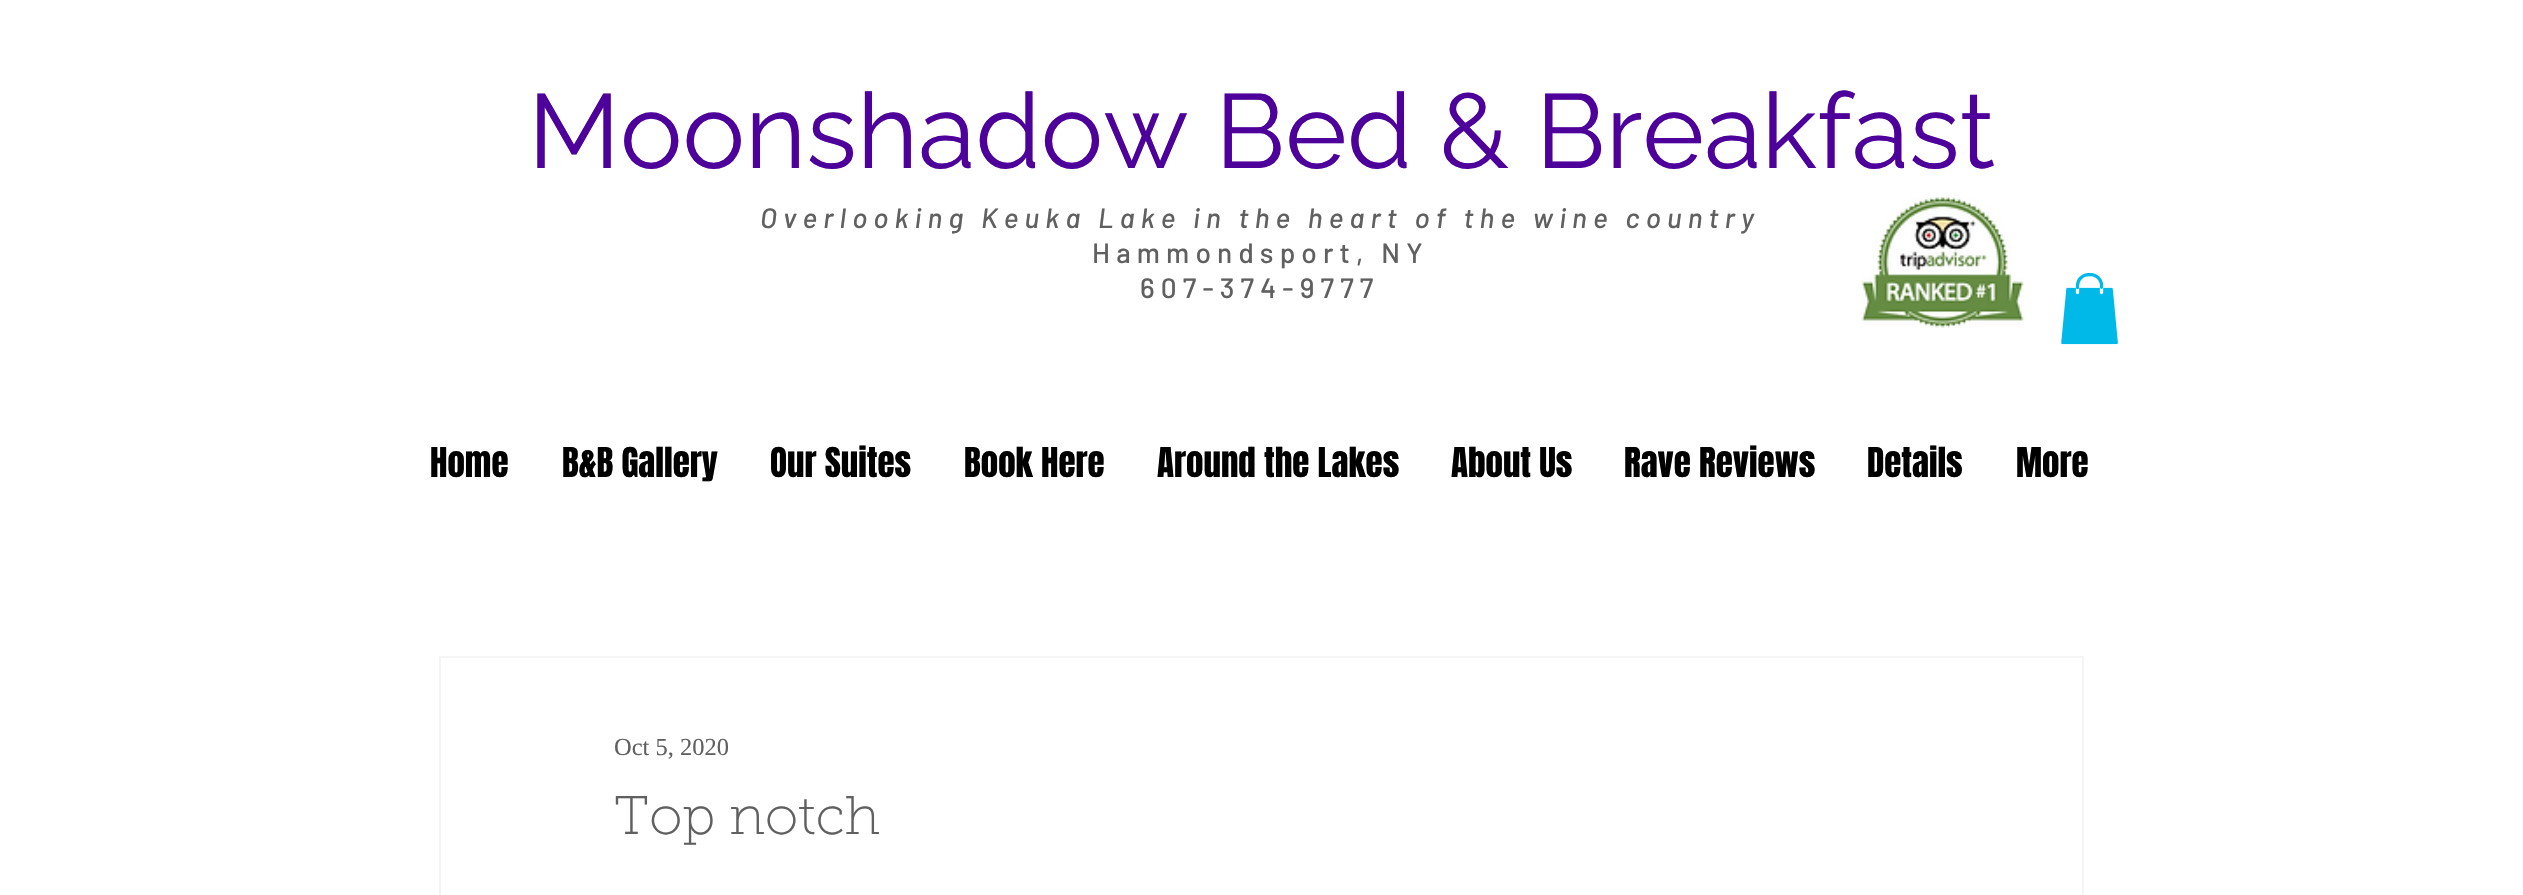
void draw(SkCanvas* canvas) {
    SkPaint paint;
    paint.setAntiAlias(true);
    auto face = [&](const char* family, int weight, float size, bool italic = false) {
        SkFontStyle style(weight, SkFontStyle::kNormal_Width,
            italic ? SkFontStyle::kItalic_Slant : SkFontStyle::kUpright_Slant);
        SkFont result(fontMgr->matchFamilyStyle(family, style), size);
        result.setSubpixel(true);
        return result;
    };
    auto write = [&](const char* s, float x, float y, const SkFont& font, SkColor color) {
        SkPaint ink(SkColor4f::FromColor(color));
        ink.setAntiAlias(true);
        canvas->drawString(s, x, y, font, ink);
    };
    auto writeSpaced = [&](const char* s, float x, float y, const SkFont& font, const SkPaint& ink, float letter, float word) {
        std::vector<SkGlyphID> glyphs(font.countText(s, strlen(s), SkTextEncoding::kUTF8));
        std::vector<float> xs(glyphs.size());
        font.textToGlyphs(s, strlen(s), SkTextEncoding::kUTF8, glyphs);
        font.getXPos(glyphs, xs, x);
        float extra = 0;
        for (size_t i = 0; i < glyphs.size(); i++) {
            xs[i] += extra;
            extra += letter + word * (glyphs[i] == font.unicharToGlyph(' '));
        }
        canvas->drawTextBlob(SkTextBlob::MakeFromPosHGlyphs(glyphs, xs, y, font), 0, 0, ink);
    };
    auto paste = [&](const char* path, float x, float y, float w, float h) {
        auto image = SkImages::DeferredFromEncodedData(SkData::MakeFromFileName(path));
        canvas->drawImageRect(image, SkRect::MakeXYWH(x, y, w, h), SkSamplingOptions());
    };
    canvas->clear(SK_ColorWHITE);
    auto kFont1 = face("Raleway", 400, 105);
    write("Moonshadow Bed & Breakfast", 528, 168, kFont1, SkColorSetRGB(77, 0, 154));
    auto kFont2 = face("Barlow", 500, 28, true);
    paint.setColor(SkColorSetRGB(96, 96, 96));
    writeSpaced("Overlooking Keuka Lake in the heart of the wine country", 760, 228, kFont2, paint, 6.15f, 0);
    auto kFont3 = face("Barlow", 500, 28);
    writeSpaced("Hammondsport, NY", 1092, 263, kFont3, paint, 6.15f, 0);
    writeSpaced("607-374-9777", 1140, 298, kFont3, paint, 6.15f, 0);
    paste("pic1.png", 1861, 197, 163, 131);
    paste("pic2.png", 2061, 273, 57, 72);
    auto kFont4 = face("Anton", 400, 35);
    write("Home", 430, 477, kFont4, SK_ColorBLACK);
    write("B&B Gallery", 562, 477, kFont4, SK_ColorBLACK);
    write("Our Suites", 770, 477, kFont4, SK_ColorBLACK);
    write("Book Here", 964, 477, kFont4, SK_ColorBLACK);
    write("Around the Lakes", 1157, 477, kFont4, SK_ColorBLACK);
    write("About Us", 1451, 477, kFont4, SK_ColorBLACK);
    write("Rave Reviews", 1624, 477, kFont4, SK_ColorBLACK);
    write("Details", 1867, 477, kFont4, SK_ColorBLACK);
    write("More", 2016, 477, kFont4, SK_ColorBLACK);
    paint.setStyle(SkPaint::kStroke_Style);
    paint.setStrokeWidth(2);
    paint.setColor(SkColorSetRGB(245, 245, 245));
    canvas->drawRect(SkRect::MakeXYWH(440, 657, 1643, 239), paint);
    auto kFont5 = face("Liberation Serif", 400, 24.5f);
    write("Oct 5, 2020", 614, 755, kFont5, SkColorSetRGB(96, 96, 96));
    auto kFont6 = face("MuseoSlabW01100", 100, 54.25f);
    write("Top notch", 614, 834, kFont6, SkColorSetRGB(96, 96, 96));
}
